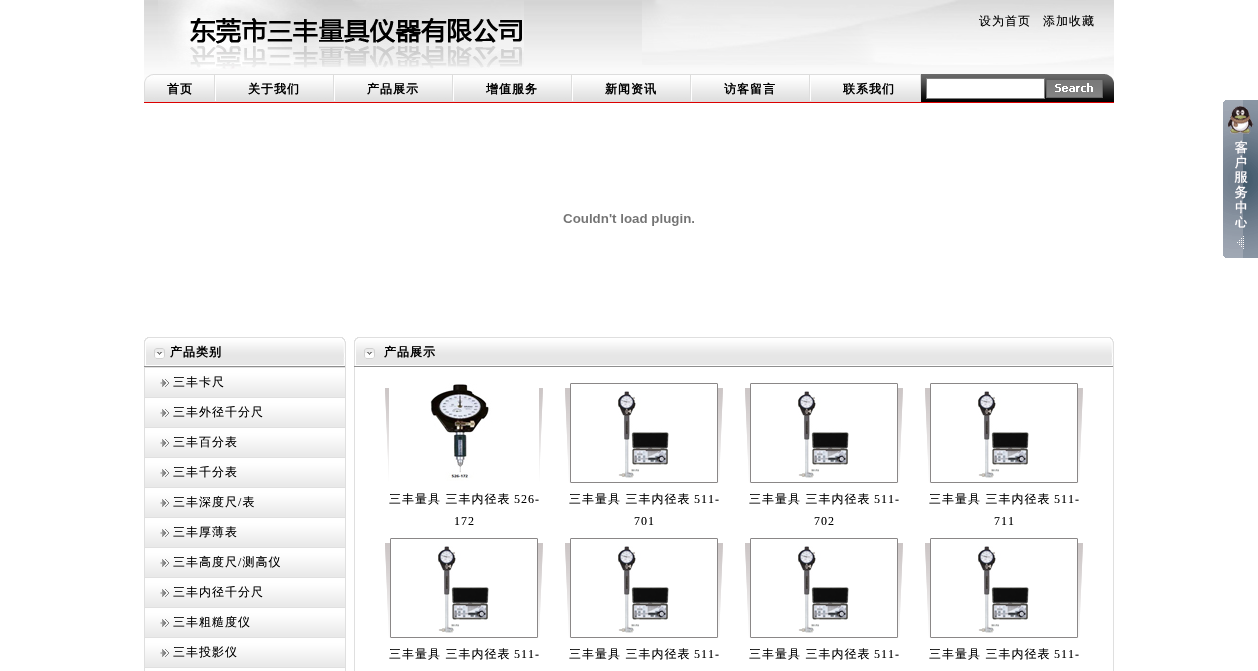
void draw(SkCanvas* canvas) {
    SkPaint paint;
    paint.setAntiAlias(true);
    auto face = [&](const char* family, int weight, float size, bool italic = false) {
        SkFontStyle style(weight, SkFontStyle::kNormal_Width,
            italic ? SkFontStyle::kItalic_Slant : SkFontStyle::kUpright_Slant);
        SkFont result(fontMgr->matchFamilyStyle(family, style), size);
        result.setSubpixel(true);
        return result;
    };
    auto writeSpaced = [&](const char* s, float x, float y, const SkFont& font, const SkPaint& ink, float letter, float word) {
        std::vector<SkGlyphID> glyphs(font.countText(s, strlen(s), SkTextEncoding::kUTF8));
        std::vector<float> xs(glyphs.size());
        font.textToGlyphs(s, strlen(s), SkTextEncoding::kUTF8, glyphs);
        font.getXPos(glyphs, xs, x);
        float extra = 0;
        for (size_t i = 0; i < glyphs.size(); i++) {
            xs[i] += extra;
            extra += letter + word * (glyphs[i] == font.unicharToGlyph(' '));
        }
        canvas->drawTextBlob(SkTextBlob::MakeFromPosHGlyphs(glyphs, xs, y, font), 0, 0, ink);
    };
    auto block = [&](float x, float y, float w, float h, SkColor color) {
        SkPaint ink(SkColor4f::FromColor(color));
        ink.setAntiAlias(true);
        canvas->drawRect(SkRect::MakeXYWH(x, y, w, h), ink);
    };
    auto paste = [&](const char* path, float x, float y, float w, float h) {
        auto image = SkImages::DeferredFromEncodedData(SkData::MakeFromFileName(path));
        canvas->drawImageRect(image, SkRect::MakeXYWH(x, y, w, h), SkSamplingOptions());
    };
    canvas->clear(SK_ColorWHITE);
    paste("pic1.png", 144, 0, 970, 74);
    paste("pic2.png", 158, 0, 366, 70);
    paste("pic3.png", 642, 0, 472, 65);
    auto kFont1 = face("WenQuanYi Zen Hei", 500, 12);
    paint.setColor(SK_ColorBLACK);
    writeSpaced("设为首页", 979, 25, kFont1, paint, 1, 0);
    writeSpaced("添加收藏", 1043, 25, kFont1, paint, 1, 0);
    paste("pic4.png", 144, 74, 11, 29);
    paste("pic5.png", 155, 74, 764, 29);
    auto kFont2 = face("WenQuanYi Zen Hei", 700, 12);
    writeSpaced("首页", 167, 93, kFont2, paint, 1, 0);
    paste("pic6.png", 214, 75, 2, 26);
    writeSpaced("关于我们", 248, 93, kFont2, paint, 1, 0);
    paste("pic7.png", 331, 75, 4, 26);
    writeSpaced("产品展示", 367, 93, kFont2, paint, 1, 0);
    paste("pic7.png", 450, 75, 4, 26);
    writeSpaced("增值服务", 486, 93, kFont2, paint, 1, 0);
    paste("pic8.png", 570, 75, 3, 26);
    writeSpaced("新闻资讯", 605, 93, kFont2, paint, 1, 0);
    paste("pic6.png", 690, 75, 2, 26);
    writeSpaced("访客留言", 724, 93, kFont2, paint, 1, 0);
    paste("pic6.png", 809, 75, 2, 26);
    writeSpaced("联系我们", 843, 93, kFont2, paint, 1, 0);
    paste("pic9.png", 919, 74, 7, 29);
    paste("pic10.png", 926, 74, 188, 29);
    paint.setColor(SK_ColorWHITE);
    canvas->drawRect(SkRect::MakeXYWH(926.5f, 78.5f, 118, 20), paint);
    paint.setStyle(SkPaint::kStroke_Style);
    paint.setStrokeWidth(1);
    paint.setColor(SkColorSetRGB(128, 128, 128));
    canvas->drawRect(SkRect::MakeXYWH(926.5f, 78.5f, 118, 20), paint);
    paste("pic11.png", 1045, 80, 59, 18);
    paste("pic12.png", 1105, 74, 9, 9);
    paste("pic13.png", 563, 214, 131, 12);
    paste("pic14.png", 1223, 100, 35, 158);
    paste("pic15.png", 144, 337, 198, 30);
    paste("pic16.png", 144, 337, 21, 29);
    paint.setStyle(SkPaint::kFill_Style);
    paint.setColor(SK_ColorBLACK);
    writeSpaced("产品类别", 170, 356, kFont2, paint, 1, 0);
    paste("pic17.png", 342, 337, 4, 30);
    block(345, 367, 1, 304, SkColorSetRGB(223, 223, 223));
    block(144, 367, 1, 304, SkColorSetRGB(223, 223, 223));
    paste("pic18.png", 145, 367, 200, 30);
    paste("pic19.png", 160, 379, 9, 8);
    writeSpaced("三丰卡尺", 173, 386, kFont1, paint, 1, 0);
    paste("pic18.png", 145, 397, 200, 30);
    paste("pic19.png", 160, 409, 9, 8);
    writeSpaced("三丰外径千分尺", 173, 416, kFont1, paint, 1, 0);
    paste("pic18.png", 145, 427, 200, 30);
    paste("pic19.png", 160, 439, 9, 8);
    writeSpaced("三丰百分表", 173, 446, kFont1, paint, 1, 0);
    paste("pic18.png", 145, 457, 200, 30);
    paste("pic19.png", 160, 469, 9, 8);
    writeSpaced("三丰千分表", 173, 476, kFont1, paint, 1, 0);
    paste("pic18.png", 145, 487, 200, 30);
    writeSpaced("三丰深度尺 表", 173, 506, kFont1, paint, 1, 0);
    paste("pic19.png", 160, 499, 9, 8);
    auto kFont3 = face("Liberation Serif", 400, 12);
    writeSpaced("/", 238, 506, kFont3, paint, 1, 0);
    paste("pic18.png", 145, 517, 200, 30);
    paste("pic19.png", 160, 529, 9, 8);
    writeSpaced("三丰厚薄表", 173, 536, kFont1, paint, 1, 0);
    paste("pic18.png", 145, 547, 200, 30);
    writeSpaced("三丰高度尺 测高仪", 173, 566, kFont1, paint, 1, 0);
    paste("pic19.png", 160, 559, 9, 8);
    writeSpaced("/", 238, 566, kFont3, paint, 1, 0);
    paste("pic18.png", 145, 577, 200, 30);
    paste("pic19.png", 160, 589, 9, 8);
    writeSpaced("三丰内径千分尺", 173, 596, kFont1, paint, 1, 0);
    paste("pic18.png", 145, 607, 200, 30);
    paste("pic19.png", 160, 619, 9, 8);
    writeSpaced("三丰粗糙度仪", 173, 626, kFont1, paint, 1, 0);
    paste("pic18.png", 145, 637, 200, 30);
    paste("pic19.png", 160, 649, 9, 8);
    writeSpaced("三丰投影仪", 173, 656, kFont1, paint, 1, 0);
    block(145, 667, 200, 1, SkColorSetRGB(224, 224, 224));
    paste("pic20.png", 354, 337, 756, 30);
    paste("pic16.png", 354, 337, 21, 29);
    writeSpaced("产品展示", 384, 356, kFont2, paint, 1, 0);
    paste("pic17.png", 1110, 337, 4, 30);
    block(1113, 367, 1, 304, SkColorSetRGB(223, 223, 223));
    block(354, 367, 1, 304, SkColorSetRGB(223, 223, 223));
    paste("pic21.png", 385, 383, 158, 100);
    paste("pic22.png", 389, 383, 150, 100);
    writeSpaced("三丰量具 三丰内径表", 389, 503, kFont1, paint, 1, 0);
    writeSpaced("526-", 514, 503, kFont3, paint, 1, 0);
    writeSpaced("172", 454, 525, kFont3, paint, 1, 0);
    paste("pic21.png", 565, 383, 158, 100);
    paste("pic23.png", 618, 391, 51, 87);
    writeSpaced("三丰量具 三丰内径表", 569, 503, kFont1, paint, 1, 0);
    writeSpaced("511-", 694, 503, kFont3, paint, 1, 0);
    writeSpaced("701", 634, 525, kFont3, paint, 1, 0);
    paste("pic21.png", 745, 383, 158, 100);
    paste("pic23.png", 798, 391, 51, 87);
    writeSpaced("三丰量具 三丰内径表", 749, 503, kFont1, paint, 1, 0);
    writeSpaced("511-", 874, 503, kFont3, paint, 1, 0);
    writeSpaced("702", 814, 525, kFont3, paint, 1, 0);
    paste("pic21.png", 925, 383, 158, 100);
    paste("pic23.png", 978, 391, 51, 87);
    writeSpaced("三丰量具 三丰内径表", 929, 503, kFont1, paint, 1, 0);
    writeSpaced("511-", 1054, 503, kFont3, paint, 1, 0);
    writeSpaced("711", 994, 525, kFont3, paint, 1, 0);
    paste("pic21.png", 385, 538, 158, 100);
    paste("pic23.png", 438, 546, 51, 87);
    writeSpaced("三丰量具 三丰内径表", 389, 658, kFont1, paint, 1, 0);
    writeSpaced("511-", 514, 658, kFont3, paint, 1, 0);
    paste("pic21.png", 565, 538, 158, 100);
    paste("pic23.png", 618, 546, 51, 87);
    writeSpaced("三丰量具 三丰内径表", 569, 658, kFont1, paint, 1, 0);
    writeSpaced("511-", 694, 658, kFont3, paint, 1, 0);
    paste("pic21.png", 745, 538, 158, 100);
    paste("pic23.png", 798, 546, 51, 87);
    writeSpaced("三丰量具 三丰内径表", 749, 658, kFont1, paint, 1, 0);
    writeSpaced("511-", 874, 658, kFont3, paint, 1, 0);
    paste("pic21.png", 925, 538, 158, 100);
    paste("pic23.png", 978, 546, 51, 87);
    writeSpaced("三丰量具 三丰内径表", 929, 658, kFont1, paint, 1, 0);
    writeSpaced("511-", 1054, 658, kFont3, paint, 1, 0);
}
